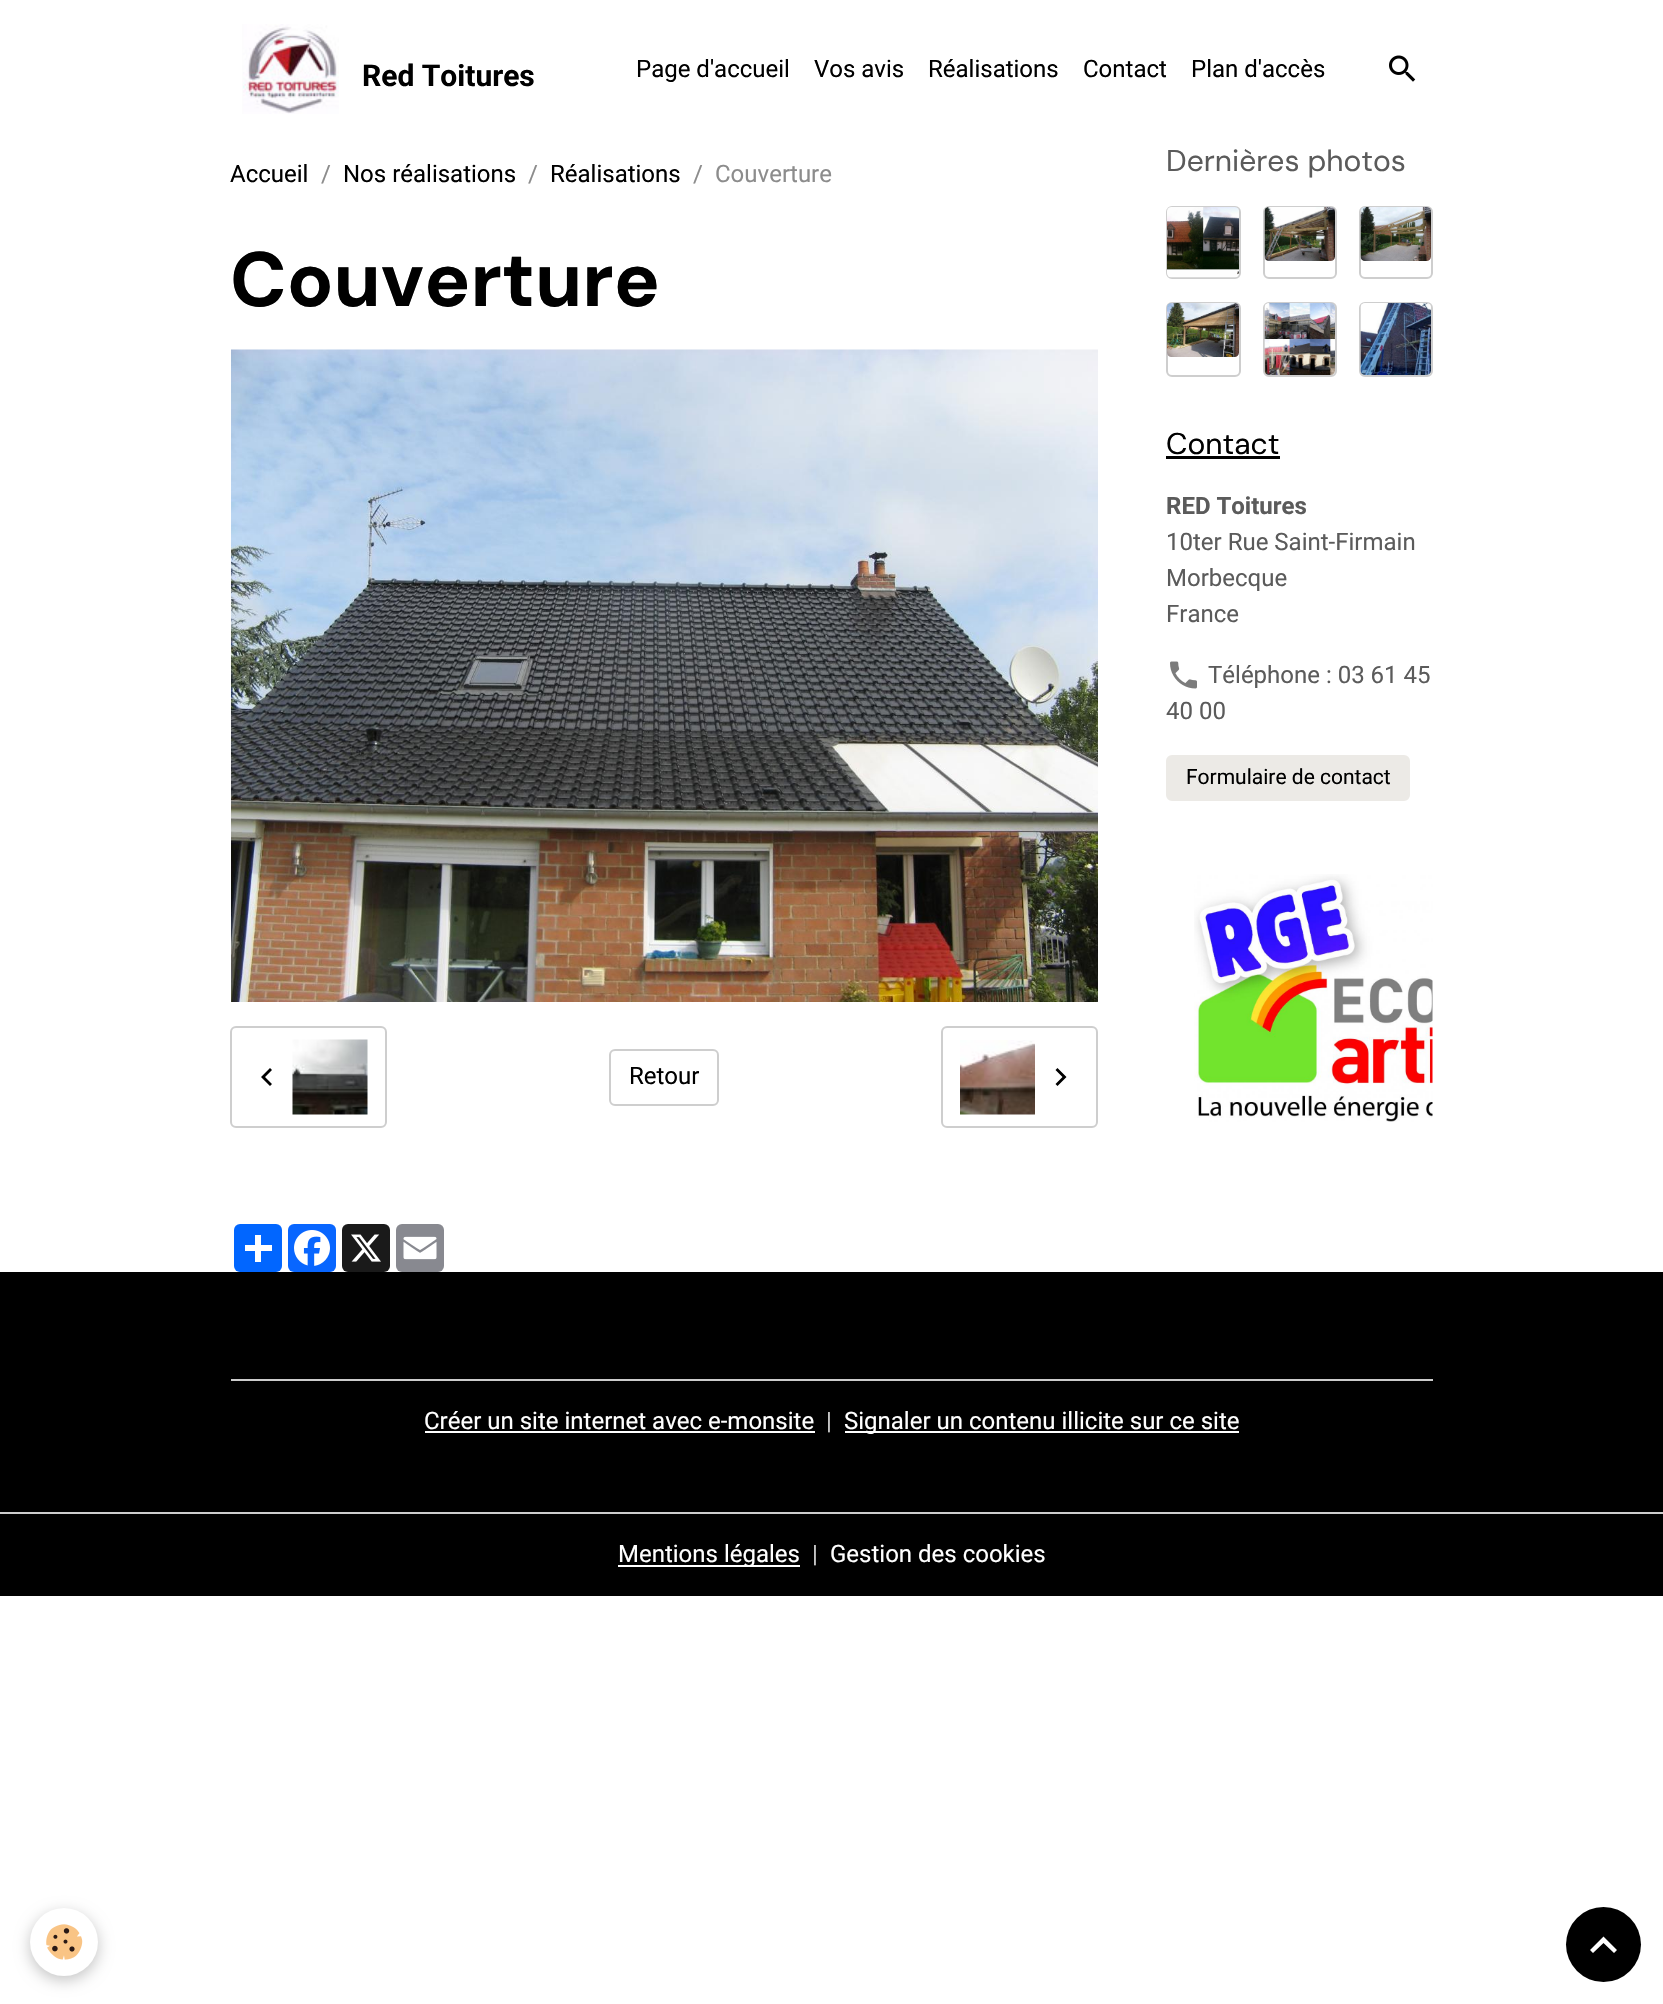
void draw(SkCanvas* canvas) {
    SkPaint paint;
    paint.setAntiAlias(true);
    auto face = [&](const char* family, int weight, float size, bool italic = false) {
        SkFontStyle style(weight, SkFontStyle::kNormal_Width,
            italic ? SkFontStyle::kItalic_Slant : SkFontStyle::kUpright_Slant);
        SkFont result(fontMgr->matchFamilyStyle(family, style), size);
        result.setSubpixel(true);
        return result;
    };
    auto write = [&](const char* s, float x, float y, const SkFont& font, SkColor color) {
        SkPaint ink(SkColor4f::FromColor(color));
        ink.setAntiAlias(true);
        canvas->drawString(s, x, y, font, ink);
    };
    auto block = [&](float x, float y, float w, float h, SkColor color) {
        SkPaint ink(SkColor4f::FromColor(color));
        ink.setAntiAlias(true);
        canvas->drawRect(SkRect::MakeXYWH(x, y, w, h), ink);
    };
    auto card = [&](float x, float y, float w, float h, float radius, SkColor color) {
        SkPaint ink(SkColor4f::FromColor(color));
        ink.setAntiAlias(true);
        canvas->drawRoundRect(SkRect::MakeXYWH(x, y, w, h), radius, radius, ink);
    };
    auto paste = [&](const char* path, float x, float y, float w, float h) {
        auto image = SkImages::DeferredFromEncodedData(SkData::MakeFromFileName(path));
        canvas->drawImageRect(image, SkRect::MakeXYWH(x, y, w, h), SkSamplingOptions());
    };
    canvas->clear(SK_ColorWHITE);
    paste("pic1.png", 242, 24, 97, 90);
    auto kFont1 = face("Roboto", 700, 30);
    write("Red Toitures", 362, 86, kFont1, SK_ColorBLACK);
    auto kFont2 = face("Roboto", 400, 24);
    write("Page d'accueil", 636, 77, kFont2, SK_ColorBLACK);
    write("Vos avis", 814, 77, kFont2, SK_ColorBLACK);
    write("Réalisations", 928, 77, kFont2, SK_ColorBLACK);
    write("Contact", 1083, 77, kFont2, SK_ColorBLACK);
    write("Plan d'accès", 1191, 77, kFont2, SK_ColorBLACK);
    paste("pic2.png", 1389, 55, 27, 27);
    write("Accueil", 230, 182, kFont2, SK_ColorBLACK);
    write("/", 321, 182, kFont2, SkColorSetRGB(140, 140, 140));
    write("Nos réalisations", 343, 182, kFont2, SK_ColorBLACK);
    write("/", 528, 182, kFont2, SkColorSetRGB(140, 140, 140));
    write("Réalisations", 550, 182, kFont2, SK_ColorBLACK);
    write("/", 693, 182, kFont2, SkColorSetRGB(140, 140, 140));
    write("Couverture", 715, 182, kFont2, SkColorSetRGB(140, 140, 140));
    auto kFont3 = face("DM Sans", 700, 76.75f);
    write("Couverture", 230, 306, kFont3, SK_ColorBLACK);
    paste("pic3.png", 231, 349, 867, 653);
    paint.setStyle(SkPaint::kStroke_Style);
    paint.setStrokeWidth(2);
    paint.setColor(SkColorSetRGB(206, 206, 206));
    canvas->drawRoundRect(SkRect::MakeXYWH(231, 1027, 155, 100), 5, 5, paint);
    paint.setStyle(SkPaint::kFill_Style);
    paint.setColor(SK_ColorBLACK);
    canvas->drawPath(SkPathBuilder().moveTo(272, 1070).lineTo(265, 1077).lineTo(272, 1084).lineTo(270, 1086).lineTo(261, 1077).lineTo(270, 1068).close().detach(), paint);
    paste("pic4.png", 292, 1039, 76, 76);
    paint.setStyle(SkPaint::kStroke_Style);
    paint.setColor(SkColorSetRGB(206, 206, 206));
    canvas->drawRoundRect(SkRect::MakeXYWH(610, 1050, 108, 55), 5, 5, paint);
    write("Retour", 629, 1084, kFont2, SK_ColorBLACK);
    canvas->drawRoundRect(SkRect::MakeXYWH(942, 1027, 155, 100), 5, 5, paint);
    paste("pic5.png", 960, 1040, 75, 75);
    paint.setStyle(SkPaint::kFill_Style);
    paint.setColor(SK_ColorBLACK);
    canvas->drawPath(SkPathBuilder().moveTo(1057.5f, 1068).lineTo(1066.5f, 1077).lineTo(1057.5f, 1086).lineTo(1055.5f, 1084).lineTo(1062.5f, 1077).lineTo(1055.5f, 1070).close().detach(), paint);
    card(234, 1224, 48, 48, 6, SkColorSetRGB(1, 102, 255));
    block(255, 1235, 6, 27, SK_ColorWHITE);
    block(245, 1245, 27, 6, SK_ColorWHITE);
    card(288, 1224, 48, 48, 6, SkColorSetRGB(8, 102, 255));
    paste("pic6.png", 294, 1230, 36, 36);
    card(342, 1224, 48, 48, 6, SkColorSetRGB(26, 26, 26));
    paste("pic7.png", 351, 1234, 30, 28);
    card(396, 1224, 48, 48, 6, SkColorSetRGB(136, 137, 144));
    paste("pic8.png", 403, 1236, 34, 24);
    auto kFont4 = face("DM Sans", 400, 30);
    write("Dernières photos", 1166, 171, kFont4, SkColorSetRGB(91, 91, 91));
    paint.setStyle(SkPaint::kStroke_Style);
    paint.setColor(SkColorSetRGB(206, 206, 206));
    canvas->drawRoundRect(SkRect::MakeXYWH(1167, 207, 73, 71), 5, 5, paint);
    paste("pic9.png", 1167, 207, 72, 71);
    canvas->drawRoundRect(SkRect::MakeXYWH(1264, 207, 72, 71), 5, 5, paint);
    paste("pic10.png", 1264, 207, 71, 54);
    canvas->drawRoundRect(SkRect::MakeXYWH(1360, 207, 72, 71), 5, 5, paint);
    paste("pic11.png", 1360, 207, 71, 54);
    canvas->drawRoundRect(SkRect::MakeXYWH(1167, 303, 73, 73), 5, 5, paint);
    paste("pic12.png", 1167, 303, 72, 54);
    canvas->drawRoundRect(SkRect::MakeXYWH(1264, 303, 72, 73), 5, 5, paint);
    paste("pic13.png", 1264, 303, 71, 72);
    canvas->drawRoundRect(SkRect::MakeXYWH(1360, 303, 72, 73), 5, 5, paint);
    paste("pic14.png", 1360, 303, 71, 72);
    write("Contact", 1166, 454, kFont4, SK_ColorBLACK);
    block(1166, 456, 114, 3, SK_ColorBLACK);
    auto kFont5 = face("Roboto", 700, 24);
    write("RED Toitures", 1166, 514, kFont5, SkColorSetRGB(91, 91, 91));
    write("10ter Rue Saint-Firmain", 1166, 550, kFont2, SkColorSetRGB(91, 91, 91));
    write("Morbecque", 1166, 586, kFont2, SkColorSetRGB(91, 91, 91));
    write("France", 1166, 622, kFont2, SkColorSetRGB(91, 91, 91));
    paste("pic15.png", 1170, 661, 27, 28);
    write("Téléphone : 03 61 45", 1208, 683, kFont2, SkColorSetRGB(91, 91, 91));
    write("40 00", 1166, 719, kFont2, SkColorSetRGB(91, 91, 91));
    paint.setStyle(SkPaint::kFill_Style);
    paint.setColor(SkColorSetRGB(236, 234, 230));
    canvas->drawRoundRect(SkRect::MakeXYWH(1167, 756, 242, 44), 5, 5, paint);
    paint.setStyle(SkPaint::kStroke_Style);
    canvas->drawRoundRect(SkRect::MakeXYWH(1167, 756, 242, 44), 5, 5, paint);
    auto kFont6 = face("Roboto", 400, 21);
    write("Formulaire de contact", 1186, 784, kFont6, SK_ColorBLACK);
    paste("pic16.png", 1194, 874, 239, 248);
    block(0, 1272, 1663, 324, SK_ColorBLACK);
    block(231, 1379, 1202, 2, SkColorSetRGB(204, 204, 204));
    write("Créer un site internet avec e-monsite", 424, 1429, kFont2, SK_ColorWHITE);
    block(425, 1431, 390, 2, SK_ColorWHITE);
    write("|", 826, 1429, kFont2, SkColorSetRGB(204, 204, 204));
    block(845, 1431, 394, 2, SK_ColorWHITE);
    write("Signaler un contenu illicite sur ce site", 844, 1429, kFont2, SK_ColorWHITE);
    block(0, 1512, 1663, 2, SkColorSetRGB(204, 204, 204));
    block(618, 1565, 182, 2, SK_ColorWHITE);
    write("Mentions légales", 618, 1562, kFont2, SK_ColorWHITE);
    write("|", 812, 1562, kFont2, SkColorSetRGB(204, 204, 204));
    write("Gestion des cookies", 830, 1562, kFont2, SK_ColorWHITE);
    paint.setStyle(SkPaint::kFill_Style);
    paint.setColor(SkColorSetARGB(61, 0, 0, 0));
    paint.setMaskFilter(SkMaskFilter::MakeBlur(kNormal_SkBlurStyle, 7.5f));
    canvas->drawRoundRect(SkRect::MakeXYWH(30, 1913, 68, 67), 33.5f, 33.5f, paint);
    paint.setMaskFilter(nullptr);
    paint.setColor(SK_ColorWHITE);
    canvas->drawCircle(64, 1942, 34, paint);
    paste("pic17.png", 46, 1924, 37, 36);
    paint.setColor(SK_ColorBLACK);
    canvas->drawCircle(1603.5f, 1944.5f, 37.5f, paint);
    paint.setColor(SK_ColorWHITE);
    canvas->drawPath(SkPathBuilder().moveTo(1603.5f, 1936.5f).lineTo(1617, 1950).lineTo(1614, 1953).lineTo(1603.5f, 1943).lineTo(1593, 1953).lineTo(1590, 1950).close().detach(), paint);
}
